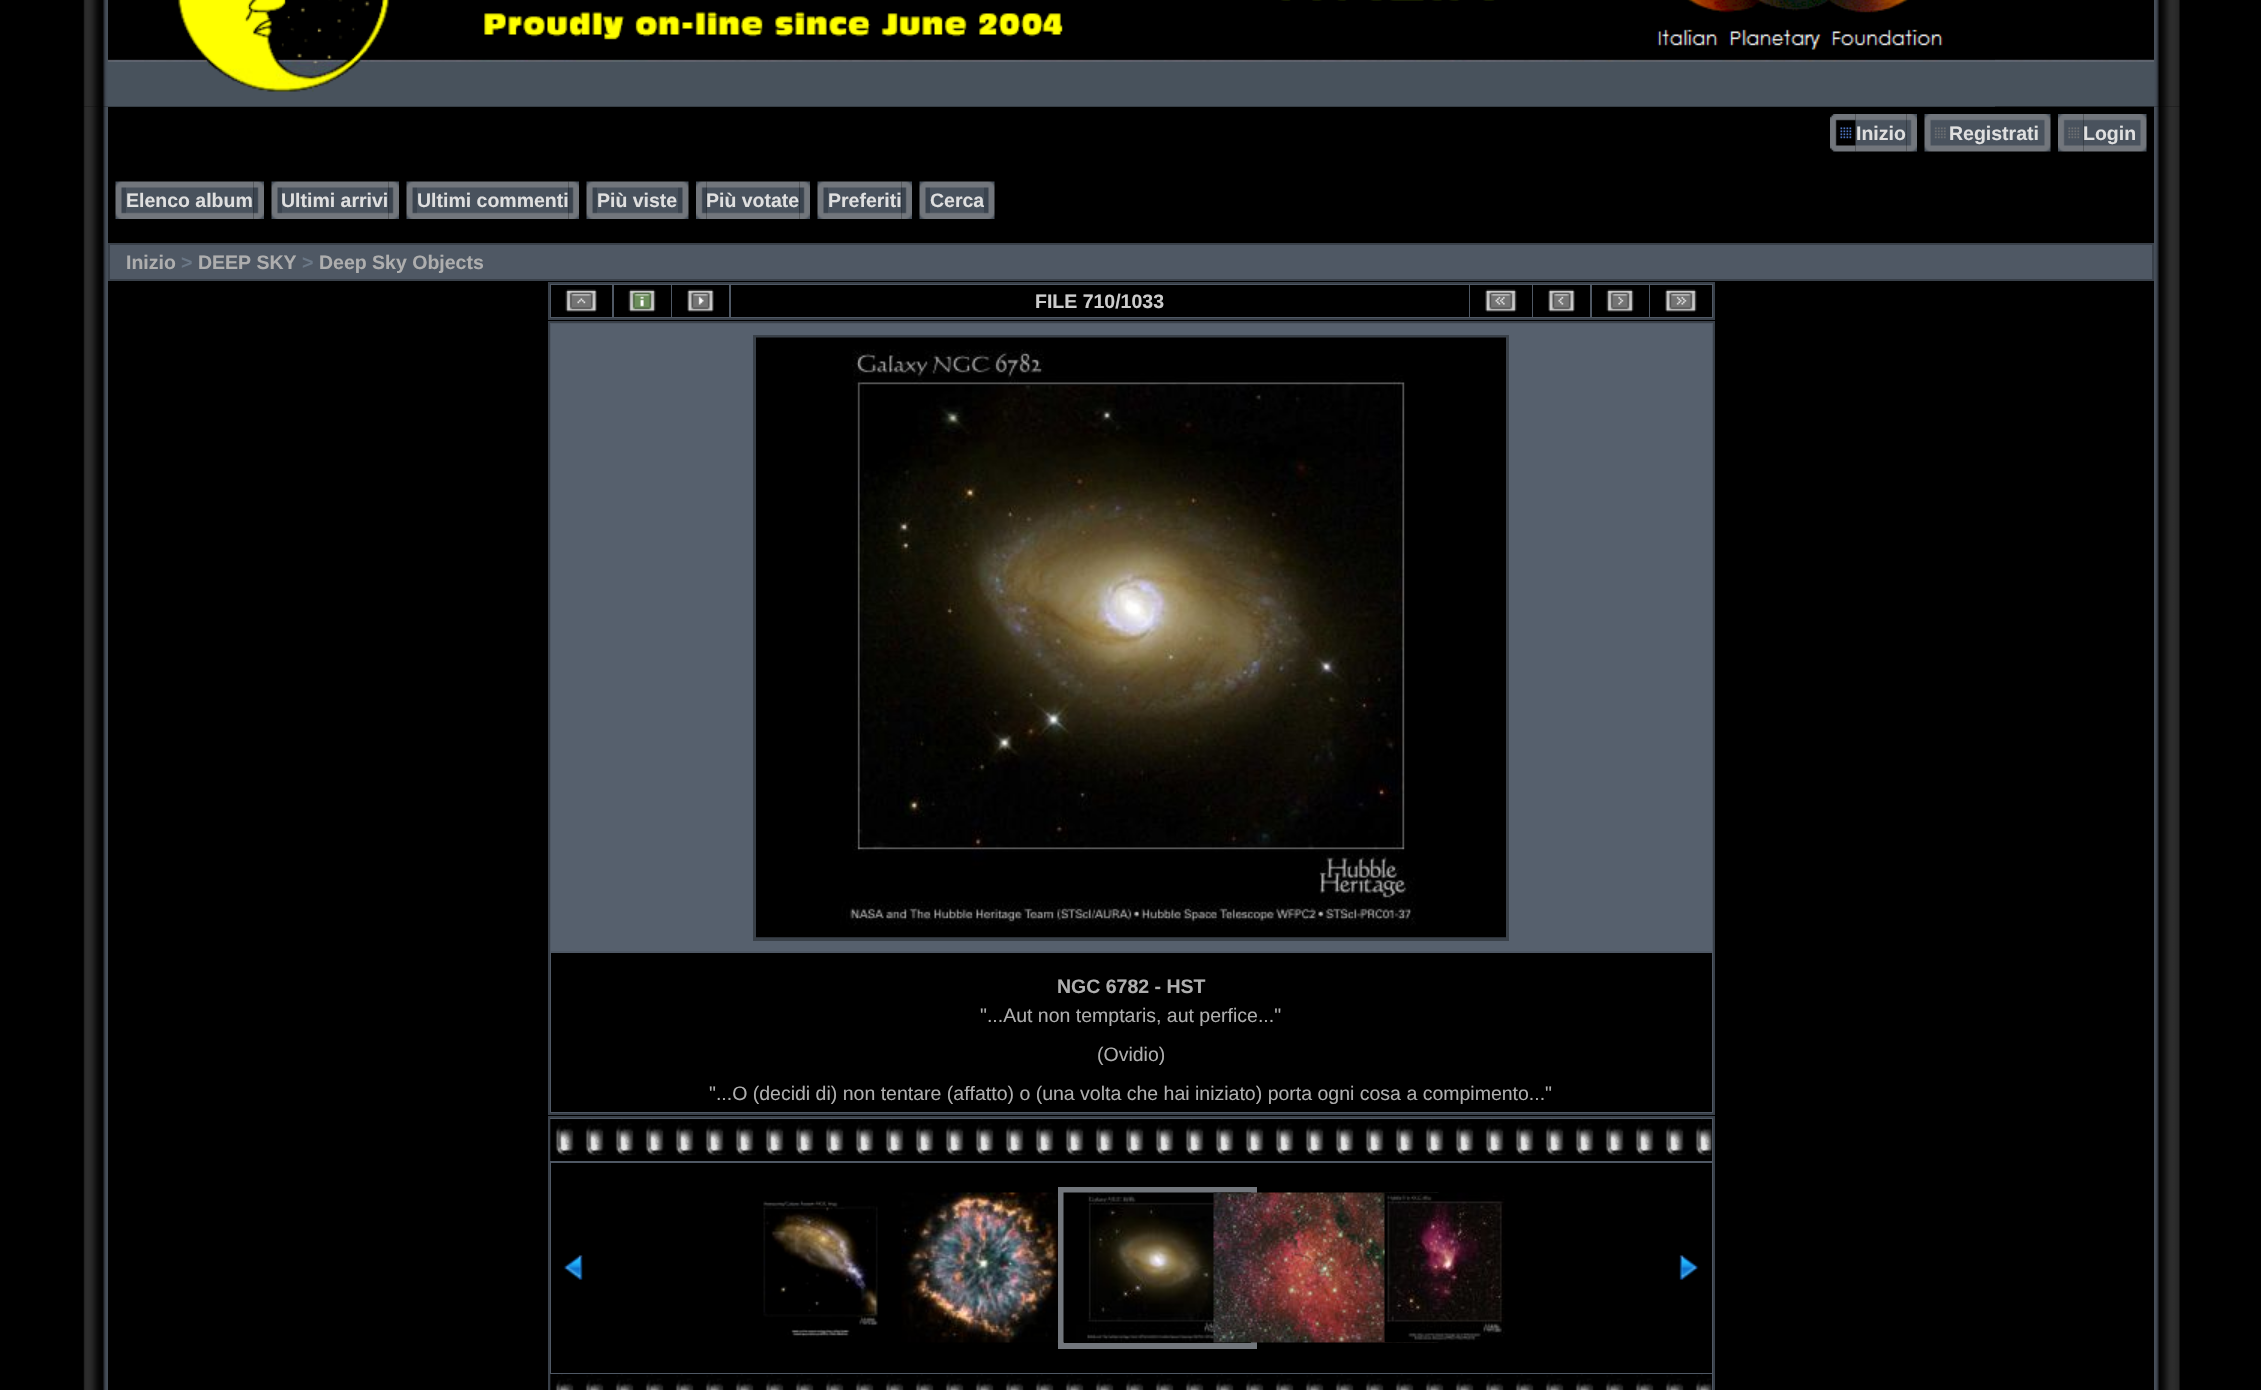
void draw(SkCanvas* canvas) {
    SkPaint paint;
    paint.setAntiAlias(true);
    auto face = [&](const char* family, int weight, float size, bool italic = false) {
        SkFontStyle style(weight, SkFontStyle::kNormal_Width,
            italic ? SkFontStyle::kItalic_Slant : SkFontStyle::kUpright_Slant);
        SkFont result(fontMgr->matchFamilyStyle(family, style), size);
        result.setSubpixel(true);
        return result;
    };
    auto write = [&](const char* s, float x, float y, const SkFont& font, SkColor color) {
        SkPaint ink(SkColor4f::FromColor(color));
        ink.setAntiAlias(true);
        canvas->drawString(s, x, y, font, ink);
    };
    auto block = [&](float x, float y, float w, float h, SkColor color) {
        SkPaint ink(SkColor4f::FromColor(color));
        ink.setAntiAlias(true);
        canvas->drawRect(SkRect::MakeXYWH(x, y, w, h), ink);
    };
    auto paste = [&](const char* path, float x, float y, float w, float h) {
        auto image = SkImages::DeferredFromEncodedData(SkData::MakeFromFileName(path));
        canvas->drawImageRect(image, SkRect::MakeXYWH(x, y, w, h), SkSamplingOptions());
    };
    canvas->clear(SK_ColorBLACK);
    paste("pic1.png", 83, 0, 25, 107);
    paste("pic2.png", 108, 59, 2046, 48);
    paste("pic3.png", 108, 0, 1887, 107);
    paste("pic4.png", 2154, 0, 26, 107);
    paste("pic5.png", 83, 106, 25, 1284);
    paste("pic7.png", 1855, 114, 52, 38);
    paste("pic6.png", 1830, 114, 26, 38);
    auto kFont1 = face("Liberation Sans", 700, 19.5f);
    write("Inizio", 1856, 140, kFont1, SkColorSetRGB(223, 223, 223));
    paste("pic8.png", 1906, 114, 11, 38);
    paste("pic9.png", 1924, 114, 26, 38);
    paste("pic10.png", 1950, 114, 90, 38);
    write("Registrati", 1949, 140, kFont1, SkColorSetRGB(223, 223, 223));
    paste("pic11.png", 2040, 114, 11, 38);
    paste("pic13.png", 2083, 114, 53, 38);
    paste("pic12.png", 2058, 114, 26, 38);
    write("Login", 2083, 140, kFont1, SkColorSetRGB(223, 223, 223));
    paste("pic11.png", 2136, 114, 11, 38);
    paste("pic14.png", 115, 181, 11, 38);
    paste("pic15.png", 126, 181, 128, 38);
    write("Elenco album", 126, 207, kFont1, SkColorSetRGB(223, 223, 223));
    paste("pic16.png", 253, 181, 11, 38);
    paste("pic14.png", 271, 181, 11, 38);
    paste("pic17.png", 282, 181, 107, 38);
    write("Ultimi arrivi", 281, 207, kFont1, SkColorSetRGB(223, 223, 223));
    paste("pic18.png", 388, 181, 11, 38);
    paste("pic19.png", 406, 181, 11, 38);
    paste("pic20.png", 417, 181, 152, 38);
    write("Ultimi commenti", 417, 207, kFont1, SkColorSetRGB(223, 223, 223));
    paste("pic18.png", 568, 181, 11, 38);
    paste("pic19.png", 586, 181, 11, 38);
    paste("pic21.png", 597, 181, 81, 38);
    write("Più viste", 597, 207, kFont1, SkColorSetRGB(223, 223, 223));
    paste("pic22.png", 678, 181, 11, 38);
    paste("pic24.png", 706, 181, 94, 38);
    paste("pic23.png", 696, 181, 11, 38);
    write("Più votate", 706, 207, kFont1, SkColorSetRGB(223, 223, 223));
    paste("pic16.png", 799, 181, 11, 38);
    paste("pic14.png", 817, 181, 11, 38);
    paste("pic25.png", 828, 181, 74, 38);
    write("Preferiti", 828, 207, kFont1, SkColorSetRGB(223, 223, 223));
    paste("pic16.png", 901, 181, 11, 38);
    paste("pic14.png", 919, 181, 11, 38);
    paste("pic26.png", 930, 181, 54, 38);
    write("Cerca", 930, 207, kFont1, SkColorSetRGB(223, 223, 223));
    paste("pic22.png", 984, 181, 11, 38);
    paint.setColor(SkColorSetRGB(79, 88, 100));
    canvas->drawRect(SkRect::MakeXYWH(109, 244, 2044, 36), paint);
    paint.setStyle(SkPaint::kStroke_Style);
    paint.setStrokeWidth(2);
    paint.setColor(SkColorSetRGB(57, 64, 73));
    canvas->drawRect(SkRect::MakeXYWH(109, 244, 2044, 36), paint);
    write("Inizio", 126, 269, kFont1, SkColorSetRGB(174, 174, 174));
    write(">", 181, 269, kFont1, SkColorSetRGB(106, 119, 134));
    write("DEEP SKY", 198, 269, kFont1, SkColorSetRGB(174, 174, 174));
    write(">", 302, 269, kFont1, SkColorSetRGB(106, 119, 134));
    write("Deep Sky Objects", 319, 269, kFont1, SkColorSetRGB(174, 174, 174));
    paint.setStyle(SkPaint::kFill_Style);
    paint.setColor(SkColorSetRGB(79, 88, 100));
    canvas->drawRect(SkRect::MakeXYWH(549, 283, 1165, 36), paint);
    paint.setStyle(SkPaint::kStroke_Style);
    paint.setColor(SkColorSetRGB(57, 64, 73));
    canvas->drawRect(SkRect::MakeXYWH(549, 283, 1165, 36), paint);
    block(551, 285, 61, 32, SK_ColorBLACK);
    paste("pic27.png", 565, 289, 32, 23);
    block(614, 285, 57, 32, SK_ColorBLACK);
    paste("pic28.png", 628, 289, 28, 23);
    block(672, 285, 57, 32, SK_ColorBLACK);
    paste("pic29.png", 687, 289, 27, 23);
    block(731, 285, 738, 32, SK_ColorBLACK);
    write("FILE 710/1033", 1035, 308, kFont1, SkColorSetRGB(204, 204, 204));
    block(1470, 285, 62, 32, SK_ColorBLACK);
    paste("pic30.png", 1485, 289, 32, 23);
    block(1533, 285, 57, 32, SK_ColorBLACK);
    paste("pic31.png", 1548, 289, 27, 23);
    block(1592, 285, 57, 32, SK_ColorBLACK);
    paste("pic32.png", 1606, 289, 28, 23);
    block(1650, 285, 62, 32, SK_ColorBLACK);
    paste("pic33.png", 1665, 289, 32, 23);
    paint.setStyle(SkPaint::kFill_Style);
    paint.setColor(SkColorSetRGB(79, 88, 100));
    canvas->drawRect(SkRect::MakeXYWH(549, 322, 1165, 792), paint);
    paint.setStyle(SkPaint::kStroke_Style);
    paint.setColor(SkColorSetRGB(57, 64, 73));
    canvas->drawRect(SkRect::MakeXYWH(549, 322, 1165, 792), paint);
    block(551, 324, 1161, 627, SkColorSetRGB(86, 96, 109));
    paint.setStrokeWidth(3);
    paint.setColor(SkColorSetRGB(57, 64, 72));
    canvas->drawRect(SkRect::MakeXYWH(754.5f, 336.5f, 753, 603), paint);
    paste("pic34.png", 756, 337, 750, 601);
    block(551, 953, 1161, 159, SK_ColorBLACK);
    write("NGC 6782 - HST", 1057, 993, kFont1, SkColorSetRGB(174, 174, 174));
    auto kFont2 = face("Liberation Sans", 400, 19.5f);
    write("\"...Aut non temptaris, aut perfice...\"", 980, 1022, kFont2, SkColorSetRGB(174, 174, 174));
    write("(Ovidio)", 1097, 1061, kFont2, SkColorSetRGB(174, 174, 174));
    write("\"...O (decidi di) non tentare (affatto) o (una volta che hai iniziato) porta ogni cosa a compimento...\"", 709, 1100, kFont2, SkColorSetRGB(174, 174, 174));
    paint.setStyle(SkPaint::kFill_Style);
    paint.setColor(SkColorSetRGB(79, 88, 100));
    canvas->drawRect(SkRect::MakeXYWH(549, 1117, 1165, 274), paint);
    paint.setStyle(SkPaint::kStroke_Style);
    paint.setStrokeWidth(2);
    paint.setColor(SkColorSetRGB(57, 64, 73));
    canvas->drawRect(SkRect::MakeXYWH(549, 1117, 1165, 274), paint);
    block(1711, 1119, 1, 42, SK_ColorBLACK);
    paste("pic35.png", 550, 1119, 1162, 42);
    paste("pic36.png", 550, 1119, 19, 42);
    block(551, 1163, 1161, 210, SK_ColorBLACK);
    paste("pic37.png", 563, 1255, 20, 25);
    paste("pic38.png", 763, 1200, 115, 137);
    paste("pic39.png", 901, 1192, 166, 151);
    paint.setStrokeWidth(6);
    paint.setColor(SkColorSetRGB(114, 118, 124));
    canvas->drawRect(SkRect::MakeXYWH(1061, 1190, 193, 156), paint);
    paste("pic40.png", 1063, 1192, 188, 151);
    paste("pic41.png", 1213, 1192, 226, 151);
    paste("pic42.png", 1384, 1192, 121, 151);
    paste("pic43.png", 1679, 1255, 20, 25);
    block(1711, 1374, 1, 16, SK_ColorBLACK);
    paste("pic44.png", 550, 1374, 1162, 16);
    paste("pic45.png", 550, 1374, 7, 16);
    paste("pic46.png", 2154, 106, 26, 1284);
}
